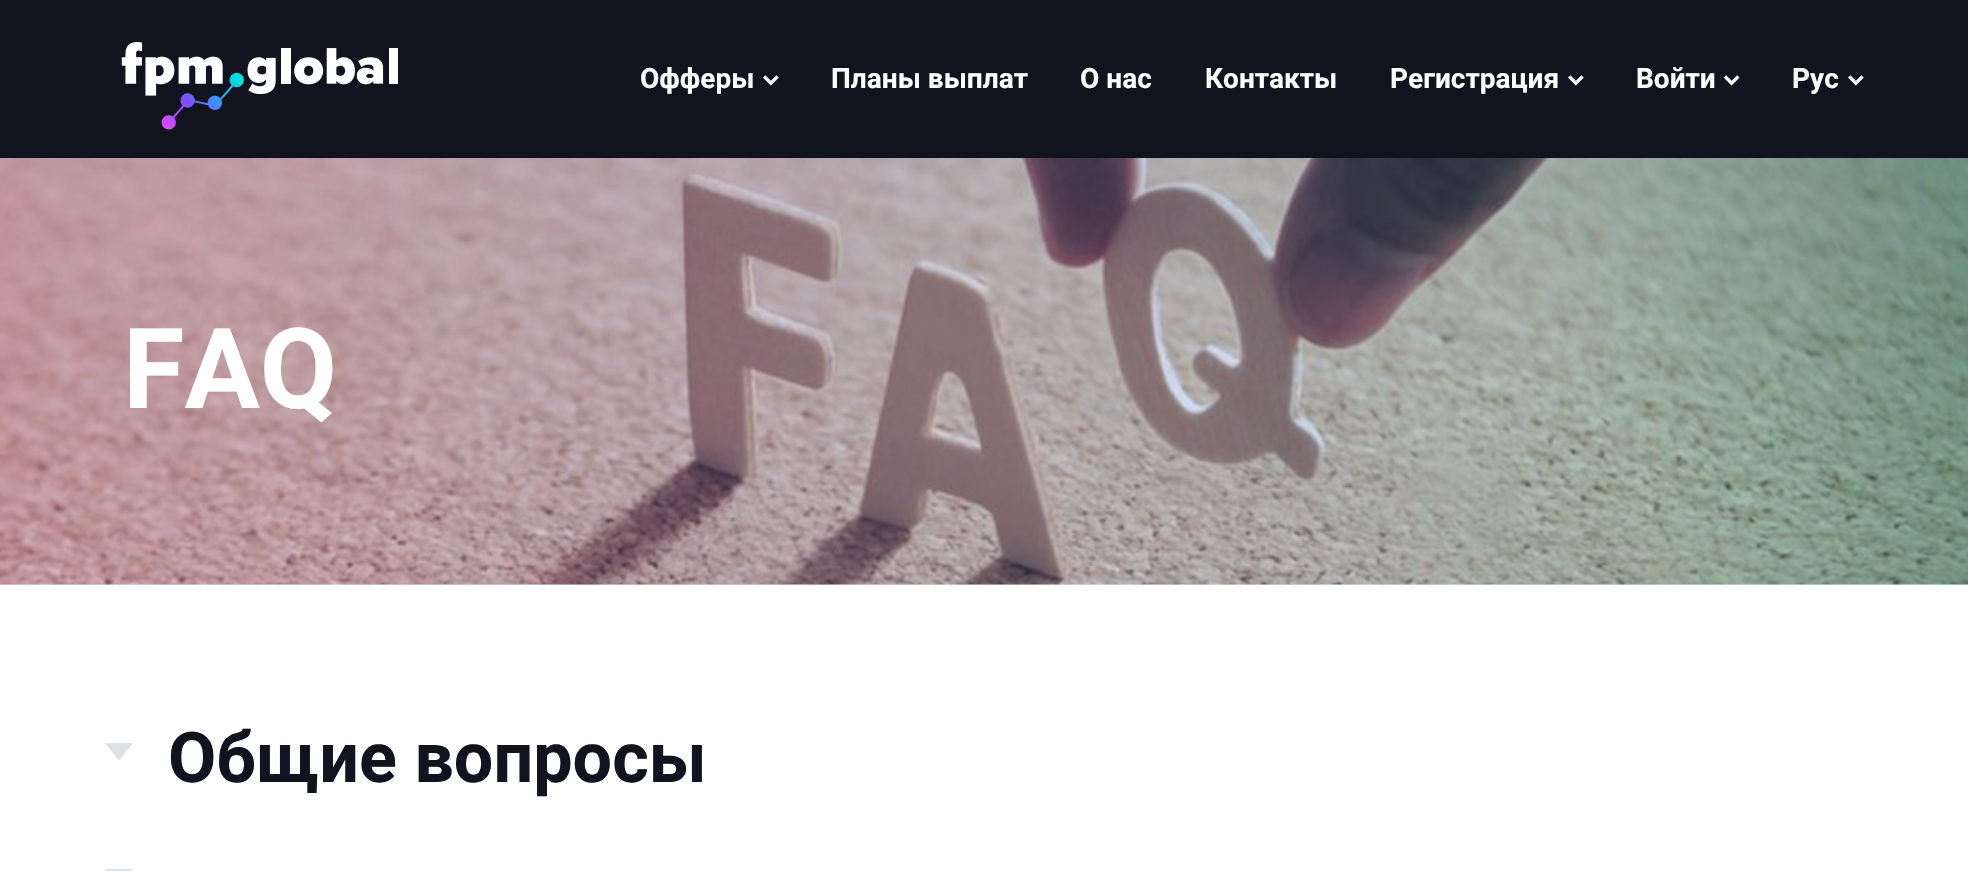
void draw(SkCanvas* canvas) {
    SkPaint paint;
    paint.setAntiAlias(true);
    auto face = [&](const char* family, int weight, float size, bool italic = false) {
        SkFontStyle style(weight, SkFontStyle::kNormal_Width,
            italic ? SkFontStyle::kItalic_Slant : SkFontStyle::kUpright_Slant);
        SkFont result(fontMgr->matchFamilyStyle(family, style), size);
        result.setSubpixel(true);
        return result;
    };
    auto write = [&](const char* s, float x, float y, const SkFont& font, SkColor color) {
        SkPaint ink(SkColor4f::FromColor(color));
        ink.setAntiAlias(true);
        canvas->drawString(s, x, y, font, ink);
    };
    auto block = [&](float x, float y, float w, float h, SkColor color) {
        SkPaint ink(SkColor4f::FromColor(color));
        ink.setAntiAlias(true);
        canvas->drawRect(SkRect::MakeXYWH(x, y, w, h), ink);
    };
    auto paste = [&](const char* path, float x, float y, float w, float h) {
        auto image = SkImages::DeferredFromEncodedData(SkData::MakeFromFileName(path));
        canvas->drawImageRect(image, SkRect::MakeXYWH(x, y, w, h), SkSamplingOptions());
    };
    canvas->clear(SK_ColorWHITE);
    block(0, 0, 1968, 158, SkColorSetRGB(17, 19, 30));
    paste("pic1.png", 121, 42, 277, 88);
    auto kFont1 = face("Roboto", 700, 28);
    write("Офферы", 640, 88, kFont1, SK_ColorWHITE);
    paste("pic2.png", 763, 75, 16, 11);
    write("Планы выплат", 831, 88, kFont1, SK_ColorWHITE);
    write("О нас", 1080, 88, kFont1, SK_ColorWHITE);
    write("Контакты", 1205, 88, kFont1, SK_ColorWHITE);
    write("Регистрация", 1390, 88, kFont1, SK_ColorWHITE);
    paste("pic2.png", 1568, 75, 16, 11);
    write("Войти", 1636, 88, kFont1, SK_ColorWHITE);
    paste("pic3.png", 1724, 75, 16, 11);
    write("Рус", 1792, 88, kFont1, SK_ColorWHITE);
    paste("pic2.png", 1848, 75, 16, 11);
    paste("pic4.png", 0, 158, 1968, 427);
    {
        const SkColor colors[] = {SkColorSetARGB(51, 1, 223, 220), SkColorSetARGB(51, 67, 142, 255), SkColorSetARGB(51, 113, 94, 255), SkColorSetARGB(51, 206, 77, 255), SkColorSetARGB(8, 207, 77, 255), SkColorSetARGB(0, 207, 77, 255), SkColorSetARGB(51, 207, 77, 255)};
        const float stops[] = {0, 0.33f, 0.67f, 1, 1, 1, 1};
        const SkPoint ends[] = {{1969, 371}, {0, 371}};
        paint.setShader(SkGradientShader::MakeLinear(ends, colors, stops, 7, SkTileMode::kClamp));
        paint.setAlpha(255);
    }
    canvas->drawRect(SkRect::MakeXYWH(0, 158, 1968, 427), paint);
    auto kFont2 = face("Roboto", 700, 112);
    write("FAQ", 123, 408, kFont2, SK_ColorWHITE);
    paint.setShader(nullptr);
    paint.setColor(SkColorSetRGB(223, 226, 228));
    canvas->drawPath(SkPathBuilder().moveTo(105, 743).lineTo(119, 760.5f).lineTo(133, 743).close().detach(), paint);
    auto kFont3 = face("Roboto", 700, 70);
    write("Общие вопросы", 168, 782, kFont3, SkColorSetRGB(17, 19, 30));
    canvas->drawPath(SkPathBuilder().moveTo(105, 869).lineTo(119, 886.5f).lineTo(133, 869).close().detach(), paint);
}
